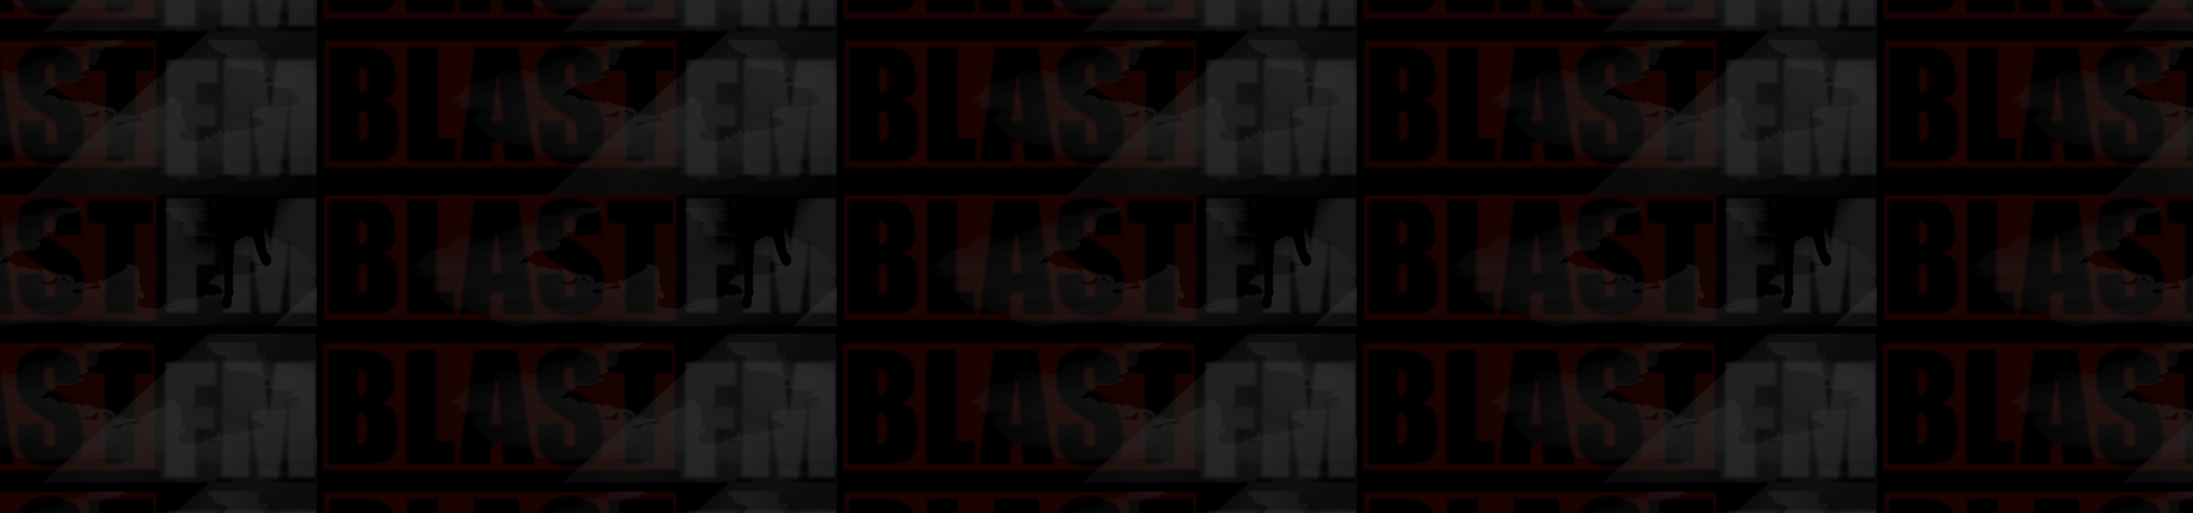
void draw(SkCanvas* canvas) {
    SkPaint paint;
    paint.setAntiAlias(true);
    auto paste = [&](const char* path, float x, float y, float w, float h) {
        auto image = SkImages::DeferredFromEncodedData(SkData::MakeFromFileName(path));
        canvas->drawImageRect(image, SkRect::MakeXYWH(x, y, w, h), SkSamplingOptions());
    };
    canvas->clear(SK_ColorBLACK);
    paste("pic1.png", 0, 0, 2193, 513);
}
